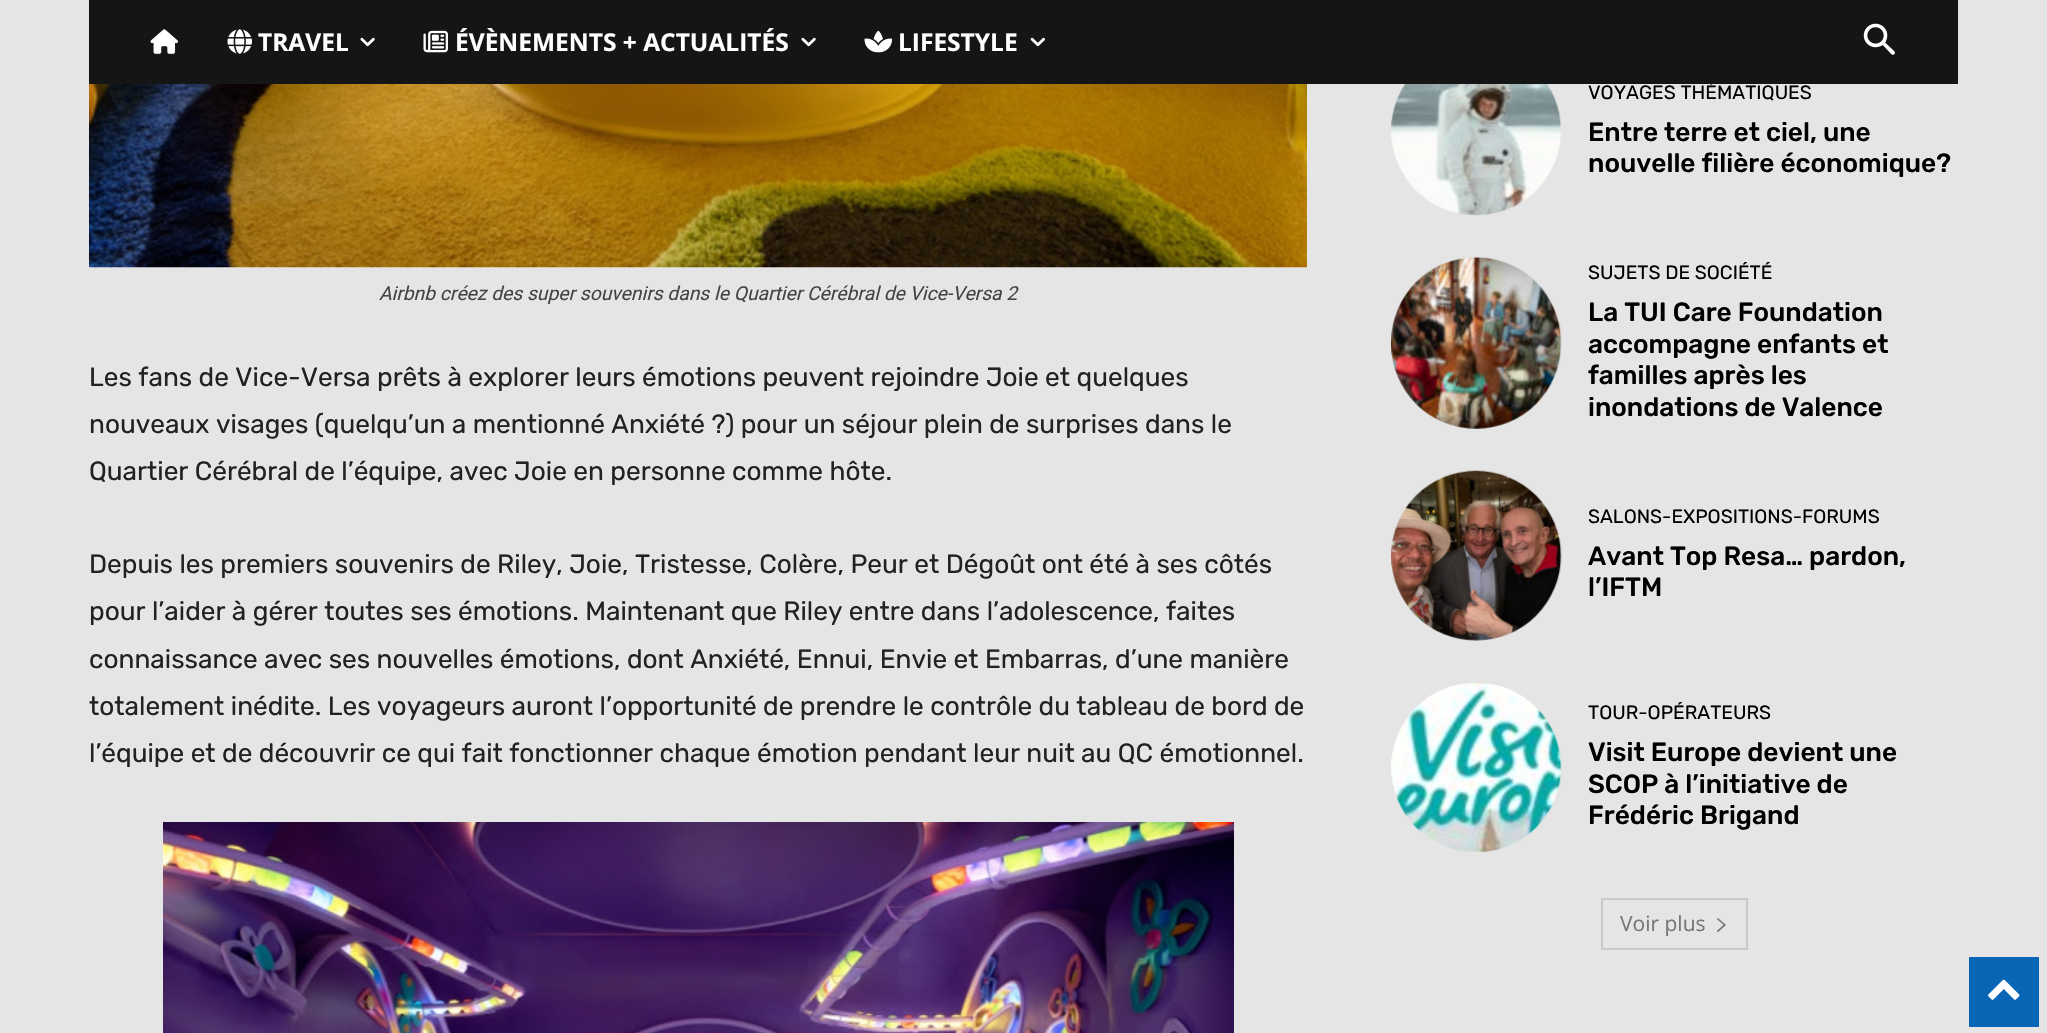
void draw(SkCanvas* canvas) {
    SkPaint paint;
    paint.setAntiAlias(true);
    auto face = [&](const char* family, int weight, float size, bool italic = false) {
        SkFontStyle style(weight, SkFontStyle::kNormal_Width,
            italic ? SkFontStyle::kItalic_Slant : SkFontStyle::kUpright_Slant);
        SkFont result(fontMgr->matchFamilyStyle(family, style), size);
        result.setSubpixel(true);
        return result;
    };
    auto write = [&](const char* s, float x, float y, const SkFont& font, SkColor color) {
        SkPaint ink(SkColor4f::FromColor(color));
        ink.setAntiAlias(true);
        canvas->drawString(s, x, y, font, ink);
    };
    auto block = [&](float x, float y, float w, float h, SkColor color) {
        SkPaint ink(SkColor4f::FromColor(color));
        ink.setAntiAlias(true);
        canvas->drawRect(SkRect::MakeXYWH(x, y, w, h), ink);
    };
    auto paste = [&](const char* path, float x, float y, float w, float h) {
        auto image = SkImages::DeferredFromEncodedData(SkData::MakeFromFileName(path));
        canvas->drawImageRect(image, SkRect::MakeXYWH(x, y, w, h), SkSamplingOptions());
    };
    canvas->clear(SkColorSetRGB(229, 229, 229));
    auto kFont1 = face("Rubik", 400, 19.25f);
    write("VOYAGES THÉMATIQUES", 1588, 99, kFont1, SK_ColorBLACK);
    block(89, 0, 1869, 84, SkColorSetRGB(21, 21, 21));
    paste("pic1.png", 150, 29, 28, 25);
    paste("pic2.png", 227, 29, 25, 25);
    auto kFont2 = face("Open Sans", 700, 24.5f);
    write("TRAVEL", 258, 51, kFont2, SK_ColorWHITE);
    paste("pic3.png", 360, 37, 15, 10);
    paste("pic4.png", 423, 30, 25, 23);
    write("ÉVÈNEMENTS + ACTUALITÉS", 455, 51, kFont2, SK_ColorWHITE);
    paste("pic3.png", 801, 37, 15, 10);
    paste("pic5.png", 864, 30, 29, 23);
    write("LIFESTYLE", 898, 51, kFont2, SK_ColorWHITE);
    paste("pic6.png", 1030, 37, 15, 10);
    paste("pic7.png", 1863, 23, 32, 32);
    paste("pic8.png", 89, 84, 1218, 184);
    auto kFont3 = face("Roboto", 400, 19.25f, true);
    write("Airbnb créez des super souvenirs dans le Quartier Cérébral de Vice-Versa 2", 379, 300, kFont3, SkColorSetRGB(68, 68, 68));
    auto kFont4 = face("Rubik", 400, 26.25f);
    write("Les fans de Vice-Versa prêts à explorer leurs émotions peuvent rejoindre Joie et quelques", 89, 386, kFont4, SkColorSetRGB(34, 34, 34));
    write("nouveaux visages (quelqu’un a mentionné Anxiété ?) pour un séjour plein de surprises dans le", 89, 433, kFont4, SkColorSetRGB(34, 34, 34));
    write("Quartier Cérébral de l’équipe, avec Joie en personne comme hôte.", 89, 480, kFont4, SkColorSetRGB(34, 34, 34));
    write("Depuis les premiers souvenirs de Riley, Joie, Tristesse, Colère, Peur et Dégoût ont été à ses côtés", 89, 573, kFont4, SkColorSetRGB(34, 34, 34));
    write("pour l’aider à gérer toutes ses émotions. Maintenant que Riley entre dans l’adolescence, faites", 89, 620, kFont4, SkColorSetRGB(34, 34, 34));
    write("connaissance avec ses nouvelles émotions, dont Anxiété, Ennui, Envie et Embarras, d’une manière", 89, 668, kFont4, SkColorSetRGB(34, 34, 34));
    write("totalement inédite. Les voyageurs auront l’opportunité de prendre le contrôle du tableau de bord de", 89, 715, kFont4, SkColorSetRGB(34, 34, 34));
    write("l’équipe et de découvrir ce qui fait fonctionner chaque émotion pendant leur nuit au QC émotionnel.", 89, 762, kFont4, SkColorSetRGB(34, 34, 34));
    paste("pic9.png", 163, 822, 1071, 211);
    paste("pic10.png", 1391, 84, 171, 132);
    auto kFont5 = face("Rubik", 500, 26.25f);
    write("Entre terre et ciel, une", 1588, 141, kFont5, SK_ColorBLACK);
    write("nouvelle filière économique?", 1588, 172, kFont5, SK_ColorBLACK);
    paste("pic11.png", 1391, 256, 171, 173);
    write("SUJETS DE SOCIÉTÉ", 1588, 279, kFont1, SK_ColorBLACK);
    write("La TUI Care Foundation", 1588, 321, kFont5, SK_ColorBLACK);
    write("accompagne enfants et", 1588, 353, kFont5, SK_ColorBLACK);
    write("familles après les", 1588, 384, kFont5, SK_ColorBLACK);
    write("inondations de Valence", 1588, 416, kFont5, SK_ColorBLACK);
    paste("pic12.png", 1391, 470, 171, 171);
    write("SALONS-EXPOSITIONS-FORUMS", 1588, 523, kFont1, SK_ColorBLACK);
    write("Avant Top Resa… pardon,", 1588, 565, kFont5, SK_ColorBLACK);
    write("l’IFTM", 1588, 596, kFont5, SK_ColorBLACK);
    paste("pic13.png", 1391, 682, 171, 170);
    write("TOUR-OPÉRATEURS", 1588, 719, kFont1, SK_ColorBLACK);
    write("Visit Europe devient une", 1588, 761, kFont5, SK_ColorBLACK);
    write("SCOP à l’initiative de", 1588, 793, kFont5, SK_ColorBLACK);
    write("Frédéric Brigand", 1588, 824, kFont5, SK_ColorBLACK);
    paint.setStyle(SkPaint::kStroke_Style);
    paint.setStrokeWidth(2);
    paint.setColor(SkColorSetRGB(201, 201, 201));
    canvas->drawRect(SkRect::MakeXYWH(1602, 899, 145, 50), paint);
    auto kFont6 = face("Open Sans", 400, 21);
    write("Voir plus", 1620, 931, kFont6, SkColorSetRGB(118, 118, 118));
    paste("pic14.png", 1717, 918, 9, 14);
    block(1969, 957, 70, 70, SkColorSetRGB(9, 102, 183));
    paste("pic15.png", 1988, 979, 32, 21);
}
